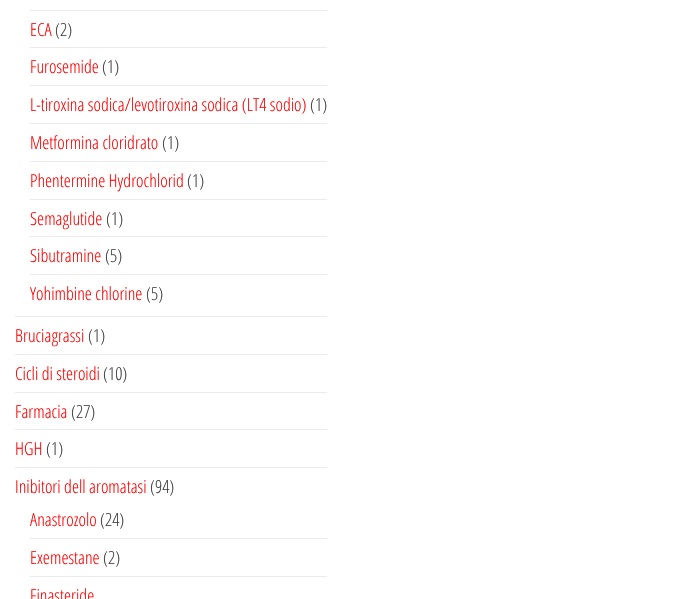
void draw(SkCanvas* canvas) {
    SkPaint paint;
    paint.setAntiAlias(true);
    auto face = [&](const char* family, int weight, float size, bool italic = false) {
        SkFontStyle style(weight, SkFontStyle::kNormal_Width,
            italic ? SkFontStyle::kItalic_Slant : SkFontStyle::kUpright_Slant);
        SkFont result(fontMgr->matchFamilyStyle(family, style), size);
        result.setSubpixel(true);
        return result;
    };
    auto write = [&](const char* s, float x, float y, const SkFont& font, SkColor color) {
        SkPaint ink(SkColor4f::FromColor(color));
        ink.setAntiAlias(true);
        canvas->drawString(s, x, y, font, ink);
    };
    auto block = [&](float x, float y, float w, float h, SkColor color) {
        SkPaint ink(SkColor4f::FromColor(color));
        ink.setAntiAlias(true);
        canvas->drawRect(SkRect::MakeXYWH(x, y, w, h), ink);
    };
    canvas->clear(SK_ColorWHITE);
    block(15, 316, 312, 1, SkColorSetRGB(235, 235, 235));
    block(30, 10, 297, 1, SkColorSetRGB(235, 235, 235));
    block(30, 47, 297, 1, SkColorSetRGB(235, 235, 235));
    auto kFont1 = face("Open Sans Condensed", 300, 18);
    write("ECA", 30, 36, kFont1, SkColorSetRGB(255, 7, 7));
    write("(2)", 55, 36, kFont1, SkColorSetRGB(64, 64, 64));
    block(30, 85, 297, 1, SkColorSetRGB(235, 235, 235));
    write("Furosemide", 30, 73, kFont1, SkColorSetRGB(255, 7, 7));
    write("(1)", 102, 73, kFont1, SkColorSetRGB(64, 64, 64));
    block(30, 123, 297, 1, SkColorSetRGB(235, 235, 235));
    write("L-tiroxina sodica/levotiroxina sodica (LT4 sodio)", 30, 111, kFont1, SkColorSetRGB(255, 7, 7));
    write("(1)", 310, 111, kFont1, SkColorSetRGB(64, 64, 64));
    block(30, 161, 297, 1, SkColorSetRGB(235, 235, 235));
    write("Metformina cloridrato", 30, 149, kFont1, SkColorSetRGB(255, 7, 7));
    write("(1)", 162, 149, kFont1, SkColorSetRGB(64, 64, 64));
    block(30, 199, 297, 1, SkColorSetRGB(235, 235, 235));
    write("Phentermine Hydrochlorid", 30, 187, kFont1, SkColorSetRGB(255, 7, 7));
    write("(1)", 187, 187, kFont1, SkColorSetRGB(64, 64, 64));
    block(30, 236, 297, 1, SkColorSetRGB(235, 235, 235));
    write("Semaglutide", 30, 225, kFont1, SkColorSetRGB(255, 7, 7));
    write("(1)", 106, 225, kFont1, SkColorSetRGB(64, 64, 64));
    block(30, 274, 297, 1, SkColorSetRGB(235, 235, 235));
    write("Sibutramine", 30, 262, kFont1, SkColorSetRGB(255, 7, 7));
    write("(5)", 105, 262, kFont1, SkColorSetRGB(64, 64, 64));
    write("Yohimbine chlorine", 30, 300, kFont1, SkColorSetRGB(255, 7, 7));
    write("(5)", 146, 300, kFont1, SkColorSetRGB(64, 64, 64));
    block(15, 354, 312, 1, SkColorSetRGB(235, 235, 235));
    write("Bruciagrassi", 15, 342, kFont1, SkColorSetRGB(255, 7, 7));
    write("(1)", 88, 342, kFont1, SkColorSetRGB(64, 64, 64));
    block(15, 392, 312, 1, SkColorSetRGB(235, 235, 235));
    write("Cicli di steroidi", 15, 380, kFont1, SkColorSetRGB(255, 7, 7));
    write("(10)", 103, 380, kFont1, SkColorSetRGB(64, 64, 64));
    block(15, 429, 312, 1, SkColorSetRGB(235, 235, 235));
    write("Farmacia", 15, 418, kFont1, SkColorSetRGB(255, 7, 7));
    write("(27)", 71, 418, kFont1, SkColorSetRGB(64, 64, 64));
    block(15, 467, 312, 1, SkColorSetRGB(235, 235, 235));
    write("HGH", 15, 455, kFont1, SkColorSetRGB(255, 7, 7));
    write("(1)", 46, 455, kFont1, SkColorSetRGB(64, 64, 64));
    write("Inibitori dell aromatasi", 15, 493, kFont1, SkColorSetRGB(255, 7, 7));
    write("(94)", 150, 493, kFont1, SkColorSetRGB(64, 64, 64));
    block(30, 538, 297, 1, SkColorSetRGB(235, 235, 235));
    write("Anastrozolo", 30, 526, kFont1, SkColorSetRGB(255, 7, 7));
    write("(24)", 100, 526, kFont1, SkColorSetRGB(64, 64, 64));
    block(30, 576, 297, 1, SkColorSetRGB(235, 235, 235));
    write("Exemestane", 30, 564, kFont1, SkColorSetRGB(255, 7, 7));
    write("(2)", 103, 564, kFont1, SkColorSetRGB(64, 64, 64));
    write("Finasteride", 30, 602, kFont1, SkColorSetRGB(255, 7, 7));
}
